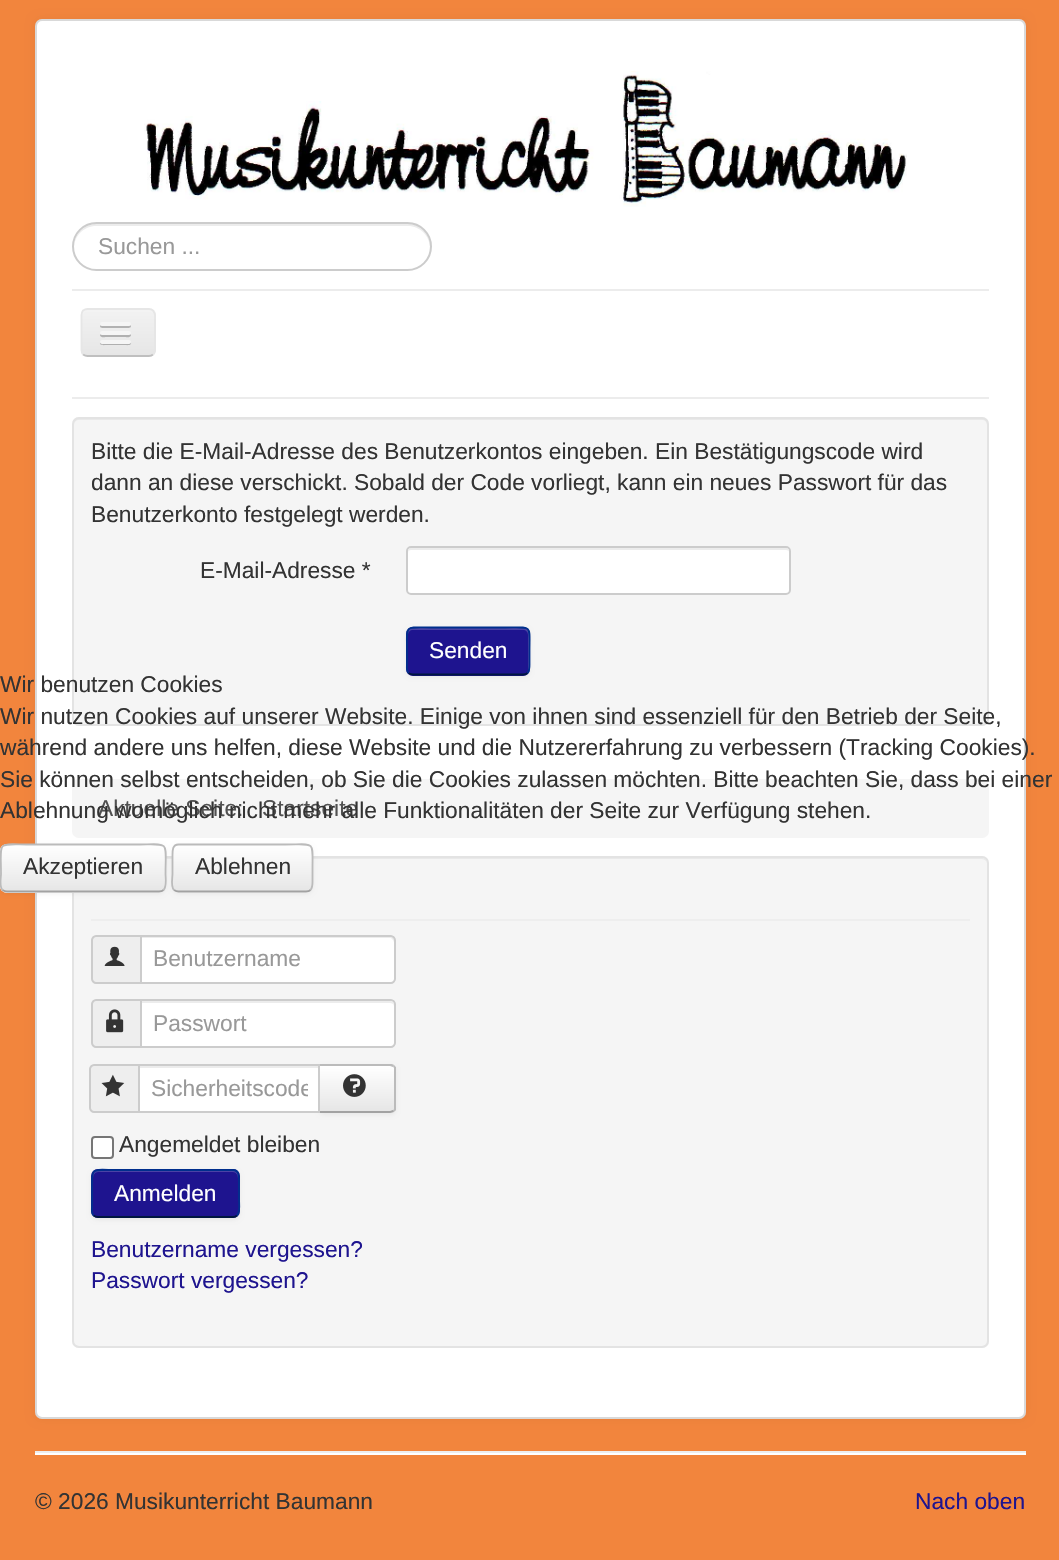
void draw(SkCanvas* canvas) {
    SkPaint paint;
    paint.setAntiAlias(true);
    auto face = [&](const char* family, int weight, float size, bool italic = false) {
        SkFontStyle style(weight, SkFontStyle::kNormal_Width,
            italic ? SkFontStyle::kItalic_Slant : SkFontStyle::kUpright_Slant);
        SkFont result(fontMgr->matchFamilyStyle(family, style), size);
        result.setSubpixel(true);
        return result;
    };
    auto write = [&](const char* s, float x, float y, const SkFont& font, SkColor color) {
        SkPaint ink(SkColor4f::FromColor(color));
        ink.setAntiAlias(true);
        canvas->drawString(s, x, y, font, ink);
    };
    auto block = [&](float x, float y, float w, float h, SkColor color) {
        SkPaint ink(SkColor4f::FromColor(color));
        ink.setAntiAlias(true);
        canvas->drawRect(SkRect::MakeXYWH(x, y, w, h), ink);
    };
    auto card = [&](float x, float y, float w, float h, float radius, SkColor color) {
        SkPaint ink(SkColor4f::FromColor(color));
        ink.setAntiAlias(true);
        canvas->drawRoundRect(SkRect::MakeXYWH(x, y, w, h), radius, radius, ink);
    };
    auto paste = [&](const char* path, float x, float y, float w, float h) {
        auto image = SkImages::DeferredFromEncodedData(SkData::MakeFromFileName(path));
        canvas->drawImageRect(image, SkRect::MakeXYWH(x, y, w, h), SkSamplingOptions());
    };
    canvas->clear(SkColorSetRGB(242, 133, 61));
    paint.setColor(SkColorSetARGB(13, 0, 0, 0));
    paint.setMaskFilter(SkMaskFilter::MakeBlur(kNormal_SkBlurStyle, 5));
    canvas->drawRoundRect(SkRect::MakeXYWH(35, 19, 991, 1400), 7, 7, paint);
    paint.setMaskFilter(nullptr);
    card(35, 19, 991, 1400, 7, SK_ColorWHITE);
    paint.setStyle(SkPaint::kStroke_Style);
    paint.setStrokeWidth(2);
    paint.setColor(SkColorSetARGB(38, 0, 0, 0));
    canvas->drawRoundRect(SkRect::MakeXYWH(36, 20, 989, 1398), 6, 6, paint);
    paste("pic1.png", 144, 71, 763, 136);
    paint.setStyle(SkPaint::kFill_Style);
    paint.setColor(SkColorSetRGB(236, 236, 236));
    canvas->drawPath(SkPathBuilder().moveTo(96, 226).lineTo(408, 226).cubicTo(420, 226, 430, 236, 430, 248).cubicTo(430, 253, 428, 258, 426, 261).cubicTo(429, 258, 431, 252, 431, 247).cubicTo(431, 234, 421, 224, 408, 224).lineTo(97, 224).cubicTo(84, 224, 74, 234, 74, 247).lineTo(74, 248).cubicTo(74, 236, 84, 226, 96, 226).close().detach(), paint);
    paint.setStyle(SkPaint::kStroke_Style);
    paint.setColor(SkColorSetRGB(204, 204, 204));
    canvas->drawRoundRect(SkRect::MakeXYWH(73, 223, 358, 47), 23.5f, 23.5f, paint);
    auto kFont1 = face("Liberation Sans", 400, 22.75f);
    write("Suchen ...", 98, 254, kFont1, SkColorSetRGB(153, 153, 153));
    block(72, 289, 917, 2, SkColorSetRGB(236, 236, 236));
    block(72, 397, 917, 2, SkColorSetRGB(236, 236, 236));
    canvas->save();
    canvas->clipPath(SkPathBuilder().moveTo(88, 308).lineTo(149, 308).cubicTo(153, 308, 156, 311, 156, 315).lineTo(156, 350).cubicTo(156, 354, 153, 357, 149, 357).lineTo(88, 357).cubicTo(84, 357, 81, 354, 81, 350).lineTo(81, 315).cubicTo(81, 311, 84, 308, 88, 308).close().detach(), true);
    paint.setStyle(SkPaint::kFill_Style);
    {
        const SkColor colors[] = {SkColorSetRGB(242, 242, 242), SkColorSetRGB(230, 230, 230)};
        const float stops[] = {0, 1};
        const SkPoint ends[] = {{118, 310}, {118, 355}};
        paint.setShader(SkGradientShader::MakeLinear(ends, colors, stops, 2, SkTileMode::kClamp));
        paint.setAlpha(255);
    }
    canvas->drawRect(SkRect::MakeXYWH(81, 310, 75, 45), paint);
    canvas->restore();
    paint.setShader(nullptr);
    paint.setColor(SkColorSetRGB(243, 243, 243));
    canvas->drawPath(SkPathBuilder().moveTo(88, 312).lineTo(149, 312).cubicTo(152, 312, 154, 314, 154, 317).cubicTo(154, 307, 147, 310, 139, 310).lineTo(97, 310).cubicTo(89, 310, 82, 307, 82, 317).cubicTo(82, 314, 85, 312, 88, 312).close().detach(), paint);
    paint.setStyle(SkPaint::kStroke_Style);
    paint.setStrokeWidth(1.8f);
    paint.setColor(SkColorSetRGB(191, 191, 191));
    canvas->drawPath(SkPathBuilder().moveTo(153, 354.5f).cubicTo(152, 355.5f, 150.5f, 356, 149, 356).lineTo(87.5f, 356).cubicTo(86, 356, 84.5f, 355.5f, 83, 354.5f).detach(), paint);
    paint.setColor(SkColorSetRGB(230, 230, 230));
    canvas->drawPath(SkPathBuilder().moveTo(83, 354.5f).cubicTo(82, 353, 81.5f, 351.5f, 81.5f, 350).lineTo(81.5f, 315).cubicTo(81.5f, 313.5f, 82, 312, 83, 310.5f).cubicTo(84.5f, 309.5f, 86, 309, 87.5f, 309).lineTo(149, 309).cubicTo(150.5f, 309, 152, 309.5f, 153, 310.5f).cubicTo(154, 312, 155, 313.5f, 155, 315).lineTo(155, 350).cubicTo(155, 351.5f, 154, 353, 153, 354.5f).detach(), paint);
    paint.setStyle(SkPaint::kFill_Style);
    paint.setColor(SkColorSetRGB(178, 178, 178));
    canvas->drawPath(SkPathBuilder().moveTo(100.5f, 325).cubicTo(98, 329, 106, 328, 106.5f, 328).lineTo(124.5f, 328).cubicTo(125, 328, 133, 329, 130.5f, 325).lineTo(129.5f, 325.5f).lineTo(101.5f, 325.5f).close().detach(), paint);
    card(100, 322, 31, 4, 2, SkColorSetRGB(245, 245, 245));
    paint.setColor(SkColorSetRGB(176, 176, 176));
    canvas->drawPath(SkPathBuilder().moveTo(100.5f, 334).lineTo(100, 335.5f).cubicTo(100.5f, 338, 105.5f, 337, 106.5f, 337).lineTo(124.5f, 337).cubicTo(125.5f, 337, 130.5f, 338, 131, 335.5f).lineTo(130.5f, 334).cubicTo(129.5f, 334.5f, 101.5f, 334.5f, 100.5f, 334).close().detach(), paint);
    card(100, 331, 31, 4, 2, SkColorSetRGB(245, 245, 245));
    paint.setColor(SkColorSetRGB(175, 175, 175));
    canvas->drawPath(SkPathBuilder().moveTo(100, 342.5f).cubicTo(99, 346, 105.5f, 345, 106.5f, 345).lineTo(124.5f, 345).cubicTo(125.5f, 345, 132, 346, 131, 342.5f).lineTo(129.5f, 343).lineTo(101.5f, 343).close().detach(), paint);
    card(100, 340, 31, 4, 2, SkColorSetRGB(245, 245, 245));
    card(72, 417, 917, 309, 7, SkColorSetRGB(245, 245, 245));
    paint.setColor(SkColorSetRGB(233, 233, 233));
    canvas->drawPath(SkPathBuilder().moveTo(79, 420).lineTo(982, 420).cubicTo(985, 420, 987, 422, 987, 425).lineTo(987, 423).cubicTo(987, 420, 985, 418, 982, 418).lineTo(79, 418).cubicTo(76, 418, 74, 420, 74, 423).lineTo(74, 425).cubicTo(74, 422, 76, 420, 79, 420).close().detach(), paint);
    paint.setStyle(SkPaint::kStroke_Style);
    paint.setStrokeWidth(2);
    paint.setColor(SkColorSetRGB(227, 227, 227));
    canvas->drawRoundRect(SkRect::MakeXYWH(73, 418, 915, 307), 6, 6, paint);
    write("Bitte die E-Mail-Adresse des Benutzerkontos eingeben. Ein Bestätigungscode wird", 91, 459, kFont1, SkColorSetRGB(51, 51, 51));
    write("dann an diese verschickt. Sobald der Code vorliegt, kann ein neues Passwort für das", 91, 490, kFont1, SkColorSetRGB(51, 51, 51));
    write("Benutzerkonto festgelegt werden.", 91, 522, kFont1, SkColorSetRGB(51, 51, 51));
    write("E-Mail-Adresse *", 200, 578, kFont1, SkColorSetRGB(51, 51, 51));
    card(406, 546, 385, 49, 5, SK_ColorWHITE);
    paint.setStyle(SkPaint::kFill_Style);
    paint.setColor(SkColorSetRGB(236, 236, 236));
    canvas->drawPath(SkPathBuilder().moveTo(411, 550).lineTo(786, 550).cubicTo(788, 550, 789, 551, 789, 553).cubicTo(789, 550, 788, 548, 785, 548).lineTo(412, 548).cubicTo(409, 548, 408, 550, 408, 553).cubicTo(408, 551, 409, 550, 411, 550).close().detach(), paint);
    paint.setStyle(SkPaint::kStroke_Style);
    paint.setColor(SkColorSetRGB(204, 204, 204));
    canvas->drawRoundRect(SkRect::MakeXYWH(407, 547, 383, 47), 4, 4, paint);
    paint.setStyle(SkPaint::kFill_Style);
    paint.setColor(SkColorSetARGB(13, 0, 0, 0));
    paint.setMaskFilter(SkMaskFilter::MakeBlur(kNormal_SkBlurStyle, 2));
    canvas->drawRoundRect(SkRect::MakeXYWH(406, 628, 124, 49), 7, 7, paint);
    paint.setMaskFilter(nullptr);
    card(406, 627, 124, 49, 7, SkColorSetRGB(30, 20, 143));
    paint.setColor(SkColorSetRGB(75, 67, 165));
    canvas->drawPath(SkPathBuilder().moveTo(413, 630).lineTo(523, 630).cubicTo(526, 630, 528, 632, 528, 635).lineTo(528, 670).lineTo(528, 673).cubicTo(528, 672, 529, 670, 529, 669).lineTo(529, 633).cubicTo(529, 630, 527, 628, 524, 628).lineTo(413, 628).cubicTo(410, 628, 408, 630, 408, 633).lineTo(408, 635).cubicTo(408, 632, 410, 630, 413, 630).close().detach(), paint);
    paint.setStyle(SkPaint::kStroke_Style);
    paint.setStrokeWidth(1.8f);
    paint.setColor(SkColorSetRGB(0, 22, 65));
    canvas->drawPath(SkPathBuilder().moveTo(527.5f, 673).cubicTo(526.5f, 674, 525, 674.5f, 523, 674.5f).lineTo(413, 674.5f).cubicTo(411.5f, 674.5f, 410, 674, 408.5f, 673).detach(), paint);
    paint.setColor(SkColorSetRGB(0, 47, 141));
    canvas->drawPath(SkPathBuilder().moveTo(408.5f, 673).cubicTo(406, 670, 407, 666, 407, 662.5f).lineTo(407, 651).cubicTo(407, 624, 403.5f, 627.5f, 431.5f, 627.5f).lineTo(505, 627.5f).cubicTo(533, 627.5f, 529.5f, 624, 529.5f, 651).lineTo(529.5f, 662.5f).cubicTo(529.5f, 666, 530, 670, 527.5f, 673).detach(), paint);
    write("Senden", 429, 658, kFont1, SK_ColorWHITE);
    card(72, 779, 917, 59, 7, SkColorSetRGB(245, 245, 245));
    write("Aktuelle Seite:", 98, 816, kFont1, SkColorSetRGB(81, 81, 81));
    write("Startseite", 262, 816, kFont1, SkColorSetRGB(81, 81, 81));
    card(72, 856, 917, 492, 7, SkColorSetRGB(245, 245, 245));
    paint.setStyle(SkPaint::kFill_Style);
    paint.setColor(SkColorSetRGB(233, 233, 233));
    canvas->drawPath(SkPathBuilder().moveTo(79, 859).lineTo(982, 859).cubicTo(985, 859, 987, 862, 987, 864).cubicTo(987, 861, 985, 858, 982, 858).lineTo(79, 858).cubicTo(76, 858, 74, 861, 74, 864).cubicTo(74, 862, 76, 859, 79, 859).close().detach(), paint);
    paint.setStyle(SkPaint::kStroke_Style);
    paint.setStrokeWidth(2);
    paint.setColor(SkColorSetRGB(227, 227, 227));
    canvas->drawRoundRect(SkRect::MakeXYWH(73, 857, 915, 490), 6, 6, paint);
    block(91, 919, 879, 2, SkColorSetRGB(238, 238, 238));
    paint.setStyle(SkPaint::kFill_Style);
    paint.setColor(SkColorSetRGB(238, 238, 238));
    canvas->drawPath(SkPathBuilder().moveTo(96, 936).lineTo(141, 936).lineTo(141, 983).lineTo(96, 983).cubicTo(94, 983, 92, 981, 92, 979).lineTo(92, 940).cubicTo(92, 938, 94, 936, 96, 936).close().detach(), paint);
    paint.setStyle(SkPaint::kStroke_Style);
    paint.setColor(SkColorSetRGB(204, 204, 204));
    canvas->drawPath(SkPathBuilder().moveTo(96, 936).lineTo(141, 936).lineTo(141, 983).lineTo(96, 983).cubicTo(94, 983, 92, 981, 92, 979).lineTo(92, 940).cubicTo(92, 938, 94, 936, 96, 936).close().detach(), paint);
    paste("pic2.png", 104, 946, 21, 20);
    paint.setStyle(SkPaint::kFill_Style);
    paint.setColor(SK_ColorWHITE);
    canvas->drawPath(SkPathBuilder().moveTo(140, 935).lineTo(391, 935).cubicTo(394, 935, 396, 937, 396, 940).lineTo(396, 979).cubicTo(396, 982, 394, 984, 391, 984).lineTo(140, 984).close().detach(), paint);
    paint.setColor(SkColorSetRGB(236, 236, 236));
    canvas->drawPath(SkPathBuilder().moveTo(142, 938).lineTo(391, 938).lineTo(393, 940).lineTo(394, 942).cubicTo(394, 939, 394, 937, 391, 936).lineTo(142, 936).close().detach(), paint);
    paint.setStyle(SkPaint::kStroke_Style);
    paint.setColor(SkColorSetRGB(204, 204, 204));
    canvas->drawPath(SkPathBuilder().moveTo(141, 936).lineTo(391, 936).cubicTo(393, 936, 395, 938, 395, 940).lineTo(395, 979).cubicTo(395, 981, 393, 983, 391, 983).lineTo(141, 983).close().detach(), paint);
    write("Benutzername", 153, 966, kFont1, SkColorSetRGB(153, 153, 153));
    paint.setStyle(SkPaint::kFill_Style);
    paint.setColor(SkColorSetRGB(238, 238, 238));
    canvas->drawPath(SkPathBuilder().moveTo(96, 1000).lineTo(141, 1000).lineTo(141, 1047).lineTo(96, 1047).cubicTo(94, 1047, 92, 1045, 92, 1043).lineTo(92, 1004).cubicTo(92, 1002, 94, 1000, 96, 1000).close().detach(), paint);
    paint.setStyle(SkPaint::kStroke_Style);
    paint.setColor(SkColorSetRGB(204, 204, 204));
    canvas->drawPath(SkPathBuilder().moveTo(96, 1000).lineTo(141, 1000).lineTo(141, 1047).lineTo(96, 1047).cubicTo(94, 1047, 92, 1045, 92, 1043).lineTo(92, 1004).cubicTo(92, 1002, 94, 1000, 96, 1000).close().detach(), paint);
    paste("pic3.png", 106, 1009, 18, 24);
    paint.setStyle(SkPaint::kFill_Style);
    paint.setColor(SK_ColorWHITE);
    canvas->drawPath(SkPathBuilder().moveTo(140, 999).lineTo(391, 999).cubicTo(394, 999, 396, 1001, 396, 1004).lineTo(396, 1043).cubicTo(396, 1046, 394, 1048, 391, 1048).lineTo(140, 1048).close().detach(), paint);
    paint.setColor(SkColorSetRGB(236, 236, 236));
    canvas->drawPath(SkPathBuilder().moveTo(142, 1003).lineTo(390, 1003).cubicTo(392, 1003, 394, 1004, 394, 1006).lineTo(394, 1005).cubicTo(394, 1003, 392, 1001, 390, 1001).lineTo(142, 1001).close().detach(), paint);
    paint.setStyle(SkPaint::kStroke_Style);
    paint.setColor(SkColorSetRGB(204, 204, 204));
    canvas->drawPath(SkPathBuilder().moveTo(141, 1000).lineTo(391, 1000).cubicTo(393, 1000, 395, 1002, 395, 1004).lineTo(395, 1043).cubicTo(395, 1045, 393, 1047, 391, 1047).lineTo(141, 1047).close().detach(), paint);
    write("Passwort", 153, 1031, kFont1, SkColorSetRGB(153, 153, 153));
    paint.setStyle(SkPaint::kFill_Style);
    paint.setColor(SkColorSetRGB(238, 238, 238));
    canvas->drawPath(SkPathBuilder().moveTo(94, 1065).lineTo(139, 1065).lineTo(139, 1112).lineTo(94, 1112).cubicTo(92, 1112, 90, 1110, 90, 1108).lineTo(90, 1069).cubicTo(90, 1067, 92, 1065, 94, 1065).close().detach(), paint);
    paint.setStyle(SkPaint::kStroke_Style);
    paint.setColor(SkColorSetRGB(204, 204, 204));
    canvas->drawPath(SkPathBuilder().moveTo(94, 1065).lineTo(139, 1065).lineTo(139, 1112).lineTo(94, 1112).cubicTo(92, 1112, 90, 1110, 90, 1108).lineTo(90, 1069).cubicTo(90, 1067, 92, 1065, 94, 1065).close().detach(), paint);
    paste("pic4.png", 101, 1074, 24, 23);
    paint.setStyle(SkPaint::kFill_Style);
    paint.setColor(SkColorSetARGB(13, 0, 0, 0));
    paint.setMaskFilter(SkMaskFilter::MakeBlur(kNormal_SkBlurStyle, 2));
    canvas->drawRoundRect(SkRect::MakeXYWH(319, 1066, 77, 49), 5, 5, paint);
    paint.setMaskFilter(nullptr);
    block(140, 1068, 178, 43, SK_ColorWHITE);
    paint.setColor(SkColorSetRGB(245, 245, 245));
    canvas->drawPath(SkPathBuilder().moveTo(319, 1064).lineTo(391, 1064).cubicTo(394, 1064, 396, 1066, 396, 1069).lineTo(396, 1108).cubicTo(396, 1111, 394, 1113, 391, 1113).lineTo(319, 1113).close().detach(), paint);
    {
        const SkColor colors[] = {SK_ColorWHITE, SkColorSetRGB(230, 230, 230)};
        const float stops[] = {0, 1};
        const SkPoint ends[] = {{357, 1066}, {357, 1111}};
        paint.setShader(SkGradientShader::MakeLinear(ends, colors, stops, 2, SkTileMode::kClamp));
        paint.setAlpha(255);
    }
    canvas->drawRect(SkRect::MakeXYWH(320, 1066, 76, 45), paint);
    paint.setShader(nullptr);
    paint.setColor(SkColorSetRGB(187, 187, 187));
    canvas->drawPath(SkPathBuilder().moveTo(318, 1064).lineTo(320, 1066).lineTo(390, 1066).lineTo(393, 1067).lineTo(394, 1065).cubicTo(393, 1064, 392, 1064, 390, 1064).close().detach(), paint);
    block(140, 1066, 179, 2, SkColorSetRGB(236, 236, 236));
    canvas->drawPath(SkPathBuilder().moveTo(396, 1110).lineTo(394, 1112).lineTo(393, 1110).cubicTo(394, 1110, 394, 1109, 394, 1108).lineTo(394, 1069).cubicTo(394, 1068, 394, 1067, 393, 1067).lineTo(394, 1065).lineTo(396, 1067).close().detach(), paint);
    paint.setColor(SkColorSetRGB(162, 162, 162));
    canvas->drawPath(SkPathBuilder().moveTo(318, 1113).lineTo(390, 1113).cubicTo(392, 1113, 393, 1112, 394, 1112).lineTo(393, 1110).lineTo(390, 1111).lineTo(320, 1111).close().detach(), paint);
    paint.setStyle(SkPaint::kStroke_Style);
    paint.setColor(SkColorSetRGB(204, 204, 204));
    canvas->drawRect(SkRect::MakeXYWH(139, 1065, 180, 47), paint);
    canvas->save();
    canvas->clipRect(SkRect::MakeXYWH(151, 1075, 157, 26));
    write("Sicherheitscode", 151, 1096, kFont1, SkColorSetRGB(153, 153, 153));
    canvas->restore();
    paste("pic5.png", 343, 1074, 23, 23);
    paint.setStyle(SkPaint::kFill_Style);
    paint.setColor(SK_ColorWHITE);
    canvas->drawRoundRect(SkRect::MakeXYWH(92, 1137, 21, 21), 3, 3, paint);
    paint.setStyle(SkPaint::kStroke_Style);
    paint.setColor(SkColorSetRGB(118, 118, 118));
    canvas->drawRoundRect(SkRect::MakeXYWH(92, 1137, 21, 21), 3, 3, paint);
    write("Angemeldet bleiben", 119, 1152, kFont1, SkColorSetRGB(51, 51, 51));
    paint.setStyle(SkPaint::kFill_Style);
    paint.setColor(SkColorSetARGB(13, 0, 0, 0));
    paint.setMaskFilter(SkMaskFilter::MakeBlur(kNormal_SkBlurStyle, 2));
    canvas->drawRoundRect(SkRect::MakeXYWH(91, 1171, 149, 49), 7, 7, paint);
    paint.setMaskFilter(nullptr);
    card(91, 1169, 149, 49, 7, SkColorSetRGB(30, 20, 143));
    paint.setColor(SkColorSetRGB(75, 67, 165));
    canvas->drawPath(SkPathBuilder().moveTo(98, 1172).lineTo(233, 1172).cubicTo(236, 1172, 238, 1175, 238, 1178).lineTo(238, 1176).cubicTo(238, 1173, 236, 1171, 233, 1171).lineTo(98, 1171).cubicTo(95, 1171, 93, 1173, 93, 1176).lineTo(93, 1178).cubicTo(93, 1175, 95, 1172, 98, 1172).close().detach(), paint);
    paint.setStyle(SkPaint::kStroke_Style);
    paint.setStrokeWidth(1.8f);
    paint.setColor(SkColorSetRGB(0, 22, 65));
    canvas->drawPath(SkPathBuilder().moveTo(237, 1215.5f).cubicTo(236, 1216.5f, 234.5f, 1217, 233, 1217).lineTo(98, 1217).cubicTo(96.5f, 1217, 95, 1216.5f, 93.5f, 1215.5f).detach(), paint);
    paint.setColor(SkColorSetRGB(0, 47, 141));
    canvas->drawPath(SkPathBuilder().moveTo(93.5f, 1215.5f).cubicTo(91, 1212.5f, 92, 1208.5f, 92, 1205).lineTo(92, 1193.5f).cubicTo(92, 1165, 89, 1170, 120.5f, 1170).lineTo(233, 1170).cubicTo(239.5f, 1170, 239, 1177, 239, 1182).lineTo(239, 1199.5f).cubicTo(239, 1203, 240.5f, 1212, 237, 1215.5f).detach(), paint);
    write("Anmelden", 114, 1201, kFont1, SK_ColorWHITE);
    write("Benutzername vergessen?", 91, 1257, kFont1, SkColorSetRGB(30, 20, 143));
    write("Passwort vergessen?", 91, 1288, kFont1, SkColorSetRGB(30, 20, 143));
    write("Wir benutzen Cookies", 0, 692, kFont1, SkColorSetRGB(51, 51, 51));
    write("Wir nutzen Cookies auf unserer Website. Einige von ihnen sind essenziell für den Betrieb der Seite,", 0, 724, kFont1, SkColorSetRGB(51, 51, 51));
    write("während andere uns helfen, diese Website und die Nutzererfahrung zu verbessern (Tracking Cookies).", 0, 755, kFont1, SkColorSetRGB(51, 51, 51));
    write("Sie können selbst entscheiden, ob Sie die Cookies zulassen möchten. Bitte beachten Sie, dass bei einer", 0, 787, kFont1, SkColorSetRGB(51, 51, 51));
    write("Ablehnung womöglich nicht mehr alle Funktionalitäten der Seite zur Verfügung stehen.", 0, 818, kFont1, SkColorSetRGB(51, 51, 51));
    paint.setStyle(SkPaint::kFill_Style);
    paint.setColor(SkColorSetARGB(13, 0, 0, 0));
    paint.setMaskFilter(SkMaskFilter::MakeBlur(kNormal_SkBlurStyle, 2));
    canvas->drawRoundRect(SkRect::MakeXYWH(0, 845, 166, 49), 7, 7, paint);
    paint.setMaskFilter(nullptr);
    card(0, 844, 166, 49, 7, SkColorSetRGB(245, 245, 245));
    canvas->save();
    canvas->clipPath(SkPathBuilder().moveTo(7, 844).lineTo(159, 844).cubicTo(163, 844, 166, 847, 166, 851).lineTo(166, 886).cubicTo(166, 890, 163, 893, 159, 893).lineTo(7, 893).cubicTo(3, 893, 0, 890, 0, 886).lineTo(0, 851).cubicTo(0, 847, 3, 844, 7, 844).close().detach(), true);
    {
        const SkColor colors[] = {SK_ColorWHITE, SkColorSetRGB(230, 230, 230)};
        const float stops[] = {0, 1};
        const SkPoint ends[] = {{83, 845}, {83, 891}};
        paint.setShader(SkGradientShader::MakeLinear(ends, colors, stops, 2, SkTileMode::kClamp));
        paint.setAlpha(255);
    }
    canvas->drawRect(SkRect::MakeXYWH(0, 845, 166, 46), paint);
    canvas->restore();
    paint.setShader(nullptr);
    paint.setColor(SkColorSetARGB(51, 255, 255, 255));
    canvas->drawPath(SkPathBuilder().moveTo(7, 847).lineTo(159, 847).cubicTo(162, 847, 164, 849, 164, 852).lineTo(164, 887).lineTo(163, 890).cubicTo(164, 889, 165, 887, 165, 886).lineTo(165, 850).cubicTo(165, 847, 163, 845, 160, 845).lineTo(7, 845).cubicTo(4, 845, 2, 847, 2, 850).lineTo(2, 852).cubicTo(2, 849, 4, 847, 7, 847).close().detach(), paint);
    paint.setStyle(SkPaint::kStroke_Style);
    paint.setColor(SkColorSetRGB(162, 162, 162));
    canvas->drawPath(SkPathBuilder().moveTo(163.5f, 890).cubicTo(162.5f, 891, 161, 891.5f, 159, 891.5f).lineTo(7, 891.5f).cubicTo(5.5f, 891.5f, 4, 891, 2.5f, 890).detach(), paint);
    paint.setColor(SkColorSetRGB(187, 187, 187));
    canvas->drawPath(SkPathBuilder().moveTo(2.5f, 890).cubicTo(-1, 886.5f, 1, 877.5f, 1, 874).cubicTo(1, 839, -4.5f, 844.5f, 32.5f, 844.5f).lineTo(134, 844.5f).cubicTo(171, 844.5f, 165.5f, 839, 165.5f, 874).cubicTo(165.5f, 877.5f, 167, 886.5f, 163.5f, 890).detach(), paint);
    write("Akzeptieren", 23, 874, kFont1, SkColorSetRGB(51, 51, 51));
    paint.setStyle(SkPaint::kFill_Style);
    paint.setColor(SkColorSetARGB(13, 0, 0, 0));
    paint.setMaskFilter(SkMaskFilter::MakeBlur(kNormal_SkBlurStyle, 2));
    canvas->drawRoundRect(SkRect::MakeXYWH(172, 845, 141, 49), 7, 7, paint);
    paint.setMaskFilter(nullptr);
    card(172, 844, 141, 49, 7, SkColorSetRGB(245, 245, 245));
    canvas->save();
    canvas->clipPath(SkPathBuilder().moveTo(179, 844).lineTo(306, 844).cubicTo(310, 844, 313, 847, 313, 851).lineTo(313, 886).cubicTo(313, 890, 310, 893, 306, 893).lineTo(179, 893).cubicTo(175, 893, 172, 890, 172, 886).lineTo(172, 851).cubicTo(172, 847, 175, 844, 179, 844).close().detach(), true);
    {
        const SkColor colors[] = {SK_ColorWHITE, SkColorSetRGB(230, 230, 230)};
        const float stops[] = {0, 1};
        const SkPoint ends[] = {{242, 845}, {242, 891}};
        paint.setShader(SkGradientShader::MakeLinear(ends, colors, stops, 2, SkTileMode::kClamp));
        paint.setAlpha(255);
    }
    canvas->drawRect(SkRect::MakeXYWH(172, 845, 141, 46), paint);
    canvas->restore();
    paint.setStyle(SkPaint::kStroke_Style);
    paint.setShader(nullptr);
    paint.setColor(SkColorSetRGB(162, 162, 162));
    canvas->drawPath(SkPathBuilder().moveTo(310.5f, 890).cubicTo(309.5f, 891, 308, 891.5f, 306, 891.5f).lineTo(178.5f, 891.5f).cubicTo(177, 891.5f, 175.5f, 891, 174, 890).detach(), paint);
    paint.setColor(SkColorSetRGB(187, 187, 187));
    canvas->drawPath(SkPathBuilder().moveTo(174, 890).cubicTo(170.5f, 886.5f, 172.5f, 877.5f, 172.5f, 874).lineTo(172.5f, 856.5f).cubicTo(172.5f, 851.5f, 172, 844.5f, 178.5f, 844.5f).lineTo(285, 844.5f).cubicTo(315.5f, 844.5f, 312.5f, 840, 312.5f, 868).lineTo(312.5f, 879.5f).cubicTo(312.5f, 883, 313, 887, 310.5f, 890).detach(), paint);
    write("Ablehnen", 195, 874, kFont1, SkColorSetRGB(51, 51, 51));
    block(35, 1451, 991, 2, SkColorSetRGB(238, 238, 238));
    block(35, 1453, 991, 2, SK_ColorWHITE);
    write("© 2026 Musikunterricht Baumann", 35, 1509, kFont1, SkColorSetRGB(51, 51, 51));
    write("Nach oben", 915, 1509, kFont1, SkColorSetRGB(30, 20, 143));
}
